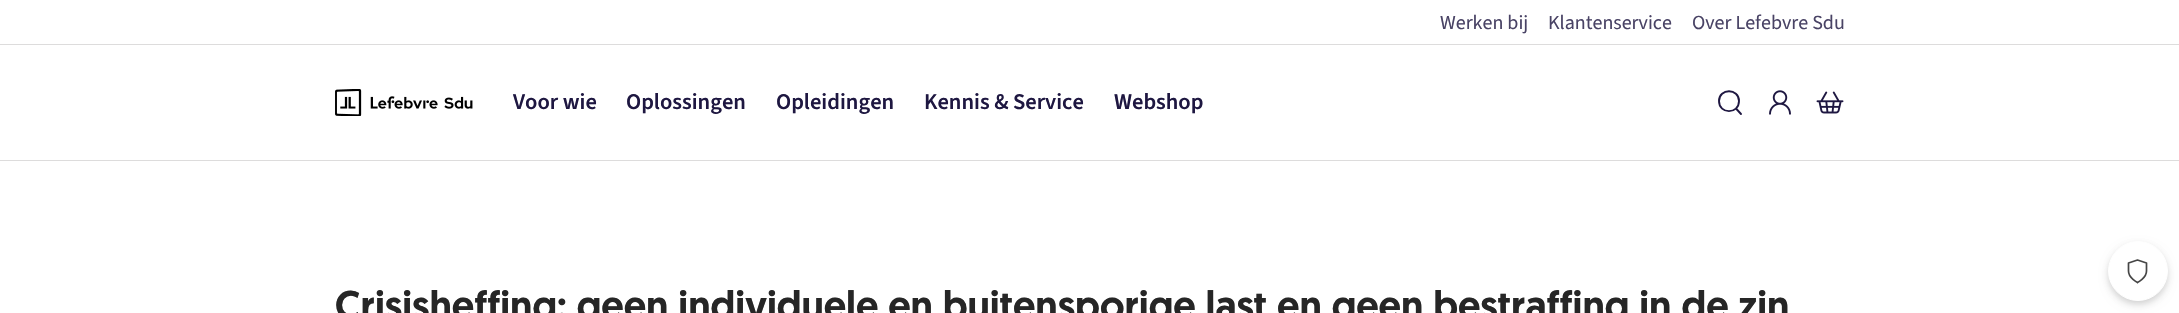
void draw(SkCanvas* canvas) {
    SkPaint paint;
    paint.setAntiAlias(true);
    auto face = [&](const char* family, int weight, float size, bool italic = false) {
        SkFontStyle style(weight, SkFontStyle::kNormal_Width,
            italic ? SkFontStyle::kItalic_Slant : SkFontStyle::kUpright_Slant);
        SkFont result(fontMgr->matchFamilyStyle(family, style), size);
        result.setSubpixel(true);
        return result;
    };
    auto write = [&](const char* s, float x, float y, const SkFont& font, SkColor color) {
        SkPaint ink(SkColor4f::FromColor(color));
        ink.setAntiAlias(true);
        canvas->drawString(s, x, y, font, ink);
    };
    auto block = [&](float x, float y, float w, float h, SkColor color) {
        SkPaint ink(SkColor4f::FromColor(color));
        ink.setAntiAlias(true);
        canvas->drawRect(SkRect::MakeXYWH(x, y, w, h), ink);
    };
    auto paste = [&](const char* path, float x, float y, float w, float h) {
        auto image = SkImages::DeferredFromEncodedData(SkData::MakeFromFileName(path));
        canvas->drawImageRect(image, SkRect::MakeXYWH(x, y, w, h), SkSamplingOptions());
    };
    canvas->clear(SK_ColorWHITE);
    block(0, 44, 2179, 1, SkColorSetRGB(221, 220, 220));
    auto kFont1 = face("Source Sans 3", 400, 20);
    write("Werken bij", 1440, 29, kFont1, SkColorSetRGB(73, 67, 101));
    write("Klantenservice", 1548, 29, kFont1, SkColorSetRGB(73, 67, 101));
    write("Over Lefebvre Sdu", 1692, 29, kFont1, SkColorSetRGB(73, 67, 101));
    block(0, 160, 2179, 1, SkColorSetRGB(221, 220, 220));
    paste("pic1.png", 335, 89, 138, 27);
    auto kFont2 = face("Source Sans 3", 600, 22.5f);
    write("Voor wie", 513, 109, kFont2, SkColorSetRGB(30, 23, 65));
    write("Oplossingen", 626, 109, kFont2, SkColorSetRGB(30, 23, 65));
    write("Opleidingen", 776, 109, kFont2, SkColorSetRGB(30, 23, 65));
    write("Kennis & Service", 924, 109, kFont2, SkColorSetRGB(30, 23, 65));
    write("Webshop", 1114, 109, kFont2, SkColorSetRGB(30, 23, 65));
    paint.setStyle(SkPaint::kStroke_Style);
    paint.setStrokeWidth(1.9f);
    paint.setStrokeCap(SkPaint::kRound_Cap);
    paint.setStrokeJoin(SkPaint::kRound_Join);
    paint.setColor(SkColorSetRGB(30, 23, 65));
    canvas->drawPath(SkPathBuilder().moveTo(1741, 114).lineTo(1736, 108.5f).moveTo(1739, 101).cubicTo(1739, 114.5f, 1719, 114.5f, 1719, 101).cubicTo(1719, 88, 1739, 88, 1739, 101).detach(), paint);
    paste("pic2.png", 1769, 90, 22, 25);
    paste("pic3.png", 1816, 91, 28, 23);
    auto kFont3 = face("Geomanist", 500, 40);
    write("Crisisheffing: geen individuele en buitensporige last en geen bestraffing in de zin", 335, 319, kFont3, SkColorSetRGB(38, 38, 38));
    paint.setStyle(SkPaint::kFill_Style);
    paint.setColor(SkColorSetARGB(20, 0, 0, 0));
    paint.setMaskFilter(SkMaskFilter::MakeBlur(kNormal_SkBlurStyle, 2.5f));
    canvas->drawRoundRect(SkRect::MakeXYWH(2108, 244, 60, 60), 30, 30, paint);
    paint.setMaskFilter(nullptr);
    paint.setColor(SkColorSetARGB(26, 0, 0, 0));
    paint.setMaskFilter(SkMaskFilter::MakeBlur(kNormal_SkBlurStyle, 4));
    canvas->drawRoundRect(SkRect::MakeXYWH(2108, 245, 60, 60), 30, 30, paint);
    paint.setMaskFilter(nullptr);
    paint.setColor(SK_ColorWHITE);
    canvas->drawCircle(2138, 271, 29.5f, paint);
    paint.setStyle(SkPaint::kStroke_Style);
    paint.setStrokeWidth(1);
    paint.setStrokeCap(SkPaint::kButt_Cap);
    paint.setStrokeJoin(SkPaint::kMiter_Join);
    canvas->drawCircle(2138, 271, 29.5f, paint);
    paint.setStrokeWidth(1.7f);
    paint.setStrokeCap(SkPaint::kRound_Cap);
    paint.setStrokeJoin(SkPaint::kRound_Join);
    paint.setColor(SkColorSetRGB(70, 70, 70));
    canvas->drawPath(SkPathBuilder().moveTo(2137.5f, 282.5f).cubicTo(2137.5f, 282.5f, 2146.5f, 278, 2146.5f, 271).lineTo(2146.5f, 263).lineTo(2137.5f, 260).lineTo(2128.5f, 263).lineTo(2128.5f, 271).cubicTo(2128.5f, 278, 2137.5f, 282.5f, 2137.5f, 282.5f).detach(), paint);
}
